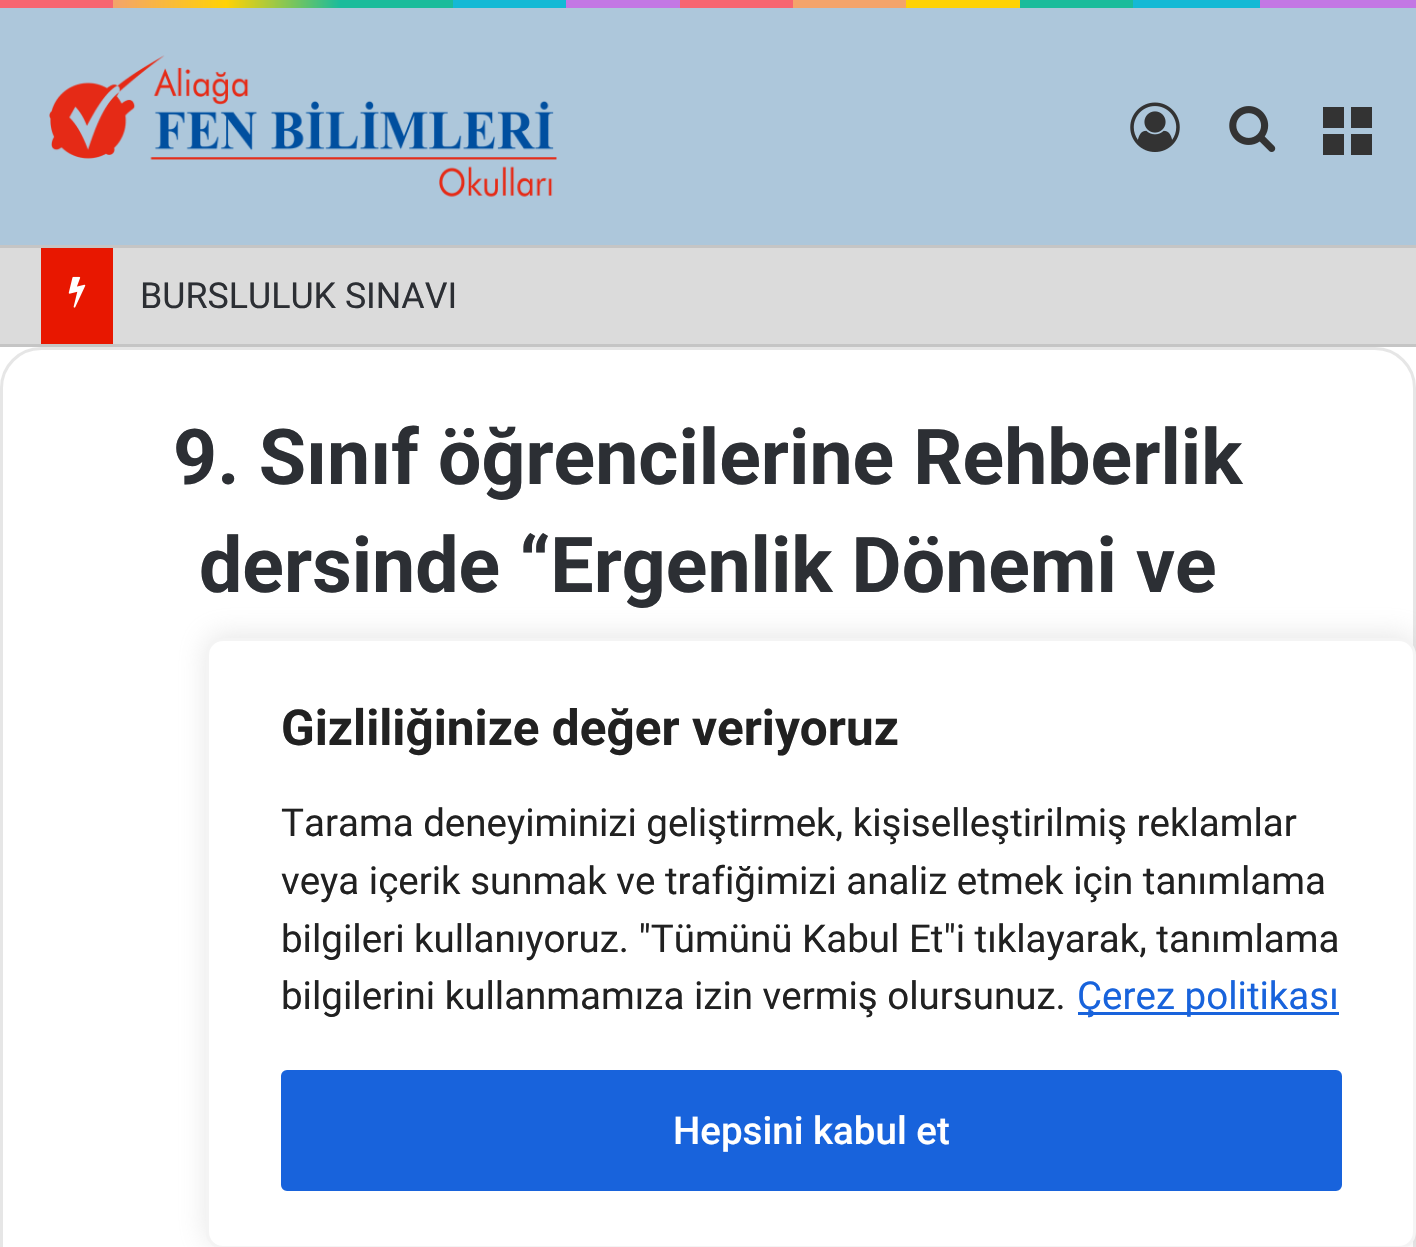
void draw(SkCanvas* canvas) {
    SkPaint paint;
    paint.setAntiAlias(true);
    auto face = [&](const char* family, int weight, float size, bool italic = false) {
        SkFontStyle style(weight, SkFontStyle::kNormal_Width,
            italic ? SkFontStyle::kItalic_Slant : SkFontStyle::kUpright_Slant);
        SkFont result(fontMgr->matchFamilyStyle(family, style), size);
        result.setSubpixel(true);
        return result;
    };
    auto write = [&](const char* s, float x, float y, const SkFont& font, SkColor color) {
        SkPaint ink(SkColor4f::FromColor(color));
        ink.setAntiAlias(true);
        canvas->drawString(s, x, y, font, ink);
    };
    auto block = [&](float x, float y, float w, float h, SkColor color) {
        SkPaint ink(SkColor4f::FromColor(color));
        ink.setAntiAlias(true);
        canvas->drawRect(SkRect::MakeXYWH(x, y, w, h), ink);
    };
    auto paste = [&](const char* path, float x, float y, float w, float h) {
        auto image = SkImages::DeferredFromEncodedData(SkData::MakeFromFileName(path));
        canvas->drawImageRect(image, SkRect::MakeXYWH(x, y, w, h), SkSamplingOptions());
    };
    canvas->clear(SK_ColorWHITE);
    {
        const SkColor colors[] = {SkColorSetRGB(247, 101, 112), SkColorSetRGB(247, 101, 112), SkColorSetRGB(243, 164, 107), SkColorSetRGB(255, 210, 5), SkColorSetRGB(27, 188, 155), SkColorSetRGB(27, 188, 155), SkColorSetRGB(20, 185, 213), SkColorSetRGB(20, 185, 213), SkColorSetRGB(195, 119, 228), SkColorSetRGB(195, 119, 228), SkColorSetRGB(247, 101, 112), SkColorSetRGB(247, 101, 112), SkColorSetRGB(243, 164, 107), SkColorSetRGB(243, 164, 107), SkColorSetRGB(255, 210, 5), SkColorSetRGB(255, 210, 5), SkColorSetRGB(27, 188, 155), SkColorSetRGB(27, 188, 155), SkColorSetRGB(20, 185, 213), SkColorSetRGB(20, 185, 213), SkColorSetRGB(195, 119, 228), SkColorSetRGB(195, 119, 228)};
        const float stops[] = {0, 0.08f, 0.08f, 0.16f, 0.24f, 0.32f, 0.32f, 0.4f, 0.4f, 0.48f, 0.48f, 0.56f, 0.56f, 0.64f, 0.64f, 0.72f, 0.72f, 0.8f, 0.8f, 0.89f, 0.89f, 1};
        const SkPoint ends[] = {{0, 4.1f}, {1416, 4.1f}};
        paint.setShader(SkGradientShader::MakeLinear(ends, colors, stops, 22, SkTileMode::kClamp));
        paint.setAlpha(255);
    }
    canvas->drawRect(SkRect::MakeXYWH(0, 0, 1416, 8), paint);
    block(0, 8, 1416, 237, SkColorSetRGB(173, 199, 219));
    paste("pic1.png", 49, 55, 508, 142);
    paste("pic2.png", 1130, 102, 50, 50);
    paste("pic3.png", 1229, 106, 47, 46);
    paint.setShader(nullptr);
    paint.setColor(SkColorSetRGB(51, 51, 51));
    canvas->drawPath(SkPathBuilder().moveTo(1323, 128).lineTo(1344, 128).lineTo(1344, 107).lineTo(1323, 107).close().moveTo(1351, 107).lineTo(1351, 128).lineTo(1372, 128).lineTo(1372, 107).close().moveTo(1351, 155).lineTo(1372, 155).lineTo(1372, 134).lineTo(1351, 134).close().moveTo(1323, 155).lineTo(1344, 155).lineTo(1344, 134).lineTo(1323, 134).close().detach(), paint);
    block(0, 248, 1416, 96, SkColorSetRGB(219, 219, 219));
    block(0, 245, 1416, 3, SkColorSetRGB(197, 197, 197));
    block(0, 344, 1416, 3, SkColorSetRGB(197, 197, 197));
    block(41, 248, 72, 96, SkColorSetRGB(232, 23, 0));
    paste("pic4.png", 68, 276, 18, 32);
    auto kFont1 = face("Roboto", 400, 35.75f);
    write("BURSLULUK SINAVI", 140, 308, kFont1, SkColorSetRGB(44, 47, 52));
    paint.setStyle(SkPaint::kStroke_Style);
    paint.setStrokeWidth(3);
    paint.setColor(SkColorSetRGB(230, 230, 230));
    canvas->drawRoundRect(SkRect::MakeXYWH(1.5f, 348.5f, 1413, 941), 39.5f, 39.5f, paint);
    auto kFont2 = face("Roboto", 700, 77);
    write("9. Sınıf öğrencilerine Rehberlik", 173, 484, kFont2, SkColorSetRGB(44, 47, 52));
    write("dersinde “Ergenlik Dönemi ve", 199, 592, kFont2, SkColorSetRGB(44, 47, 52));
    paint.setStyle(SkPaint::kFill_Style);
    paint.setColor(SkColorSetARGB(77, 172, 171, 171));
    paint.setMaskFilter(SkMaskFilter::MakeBlur(kNormal_SkBlurStyle, 14));
    canvas->drawRoundRect(SkRect::MakeXYWH(206, 635, 1210, 611), 17, 17, paint);
    paint.setMaskFilter(nullptr);
    paint.setColor(SK_ColorWHITE);
    canvas->drawRoundRect(SkRect::MakeXYWH(207.5f, 639.5f, 1207, 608), 15.5f, 15.5f, paint);
    paint.setStyle(SkPaint::kStroke_Style);
    paint.setColor(SkColorSetRGB(244, 244, 244));
    canvas->drawRoundRect(SkRect::MakeXYWH(207.5f, 639.5f, 1207, 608), 15.5f, 15.5f, paint);
    auto kFont3 = face("Roboto", 700, 49.5f);
    write("Gizliliğinize değer veriyoruz", 281, 745, kFont3, SkColorSetRGB(33, 33, 33));
    auto kFont4 = face("Roboto", 400, 38.5f);
    write("Tarama deneyiminizi geliştirmek, kişiselleştirilmiş reklamlar", 281, 836, kFont4, SkColorSetRGB(33, 33, 33));
    write("veya içerik sunmak ve trafiğimizi analiz etmek için tanımlama", 281, 894, kFont4, SkColorSetRGB(33, 33, 33));
    write("bilgileri kullanıyoruz. \"Tümünü Kabul Et\"i tıklayarak, tanımlama", 281, 952, kFont4, SkColorSetRGB(33, 33, 33));
    write("bilgilerini kullanmamıza izin vermiş olursunuz.", 281, 1009, kFont4, SkColorSetRGB(33, 33, 33));
    block(1078, 1012, 261, 3, SkColorSetRGB(24, 99, 220));
    write("Çerez politikası", 1077, 1009, kFont4, SkColorSetRGB(24, 99, 220));
    paint.setStyle(SkPaint::kFill_Style);
    paint.setColor(SkColorSetRGB(24, 99, 220));
    canvas->drawRoundRect(SkRect::MakeXYWH(284, 1073, 1055, 115), 3, 3, paint);
    paint.setStyle(SkPaint::kStroke_Style);
    paint.setStrokeWidth(6);
    canvas->drawRoundRect(SkRect::MakeXYWH(284, 1073, 1055, 115), 3, 3, paint);
    auto kFont5 = face("Roboto", 500, 38.5f);
    write("Hepsini kabul et", 673, 1144, kFont5, SK_ColorWHITE);
}
